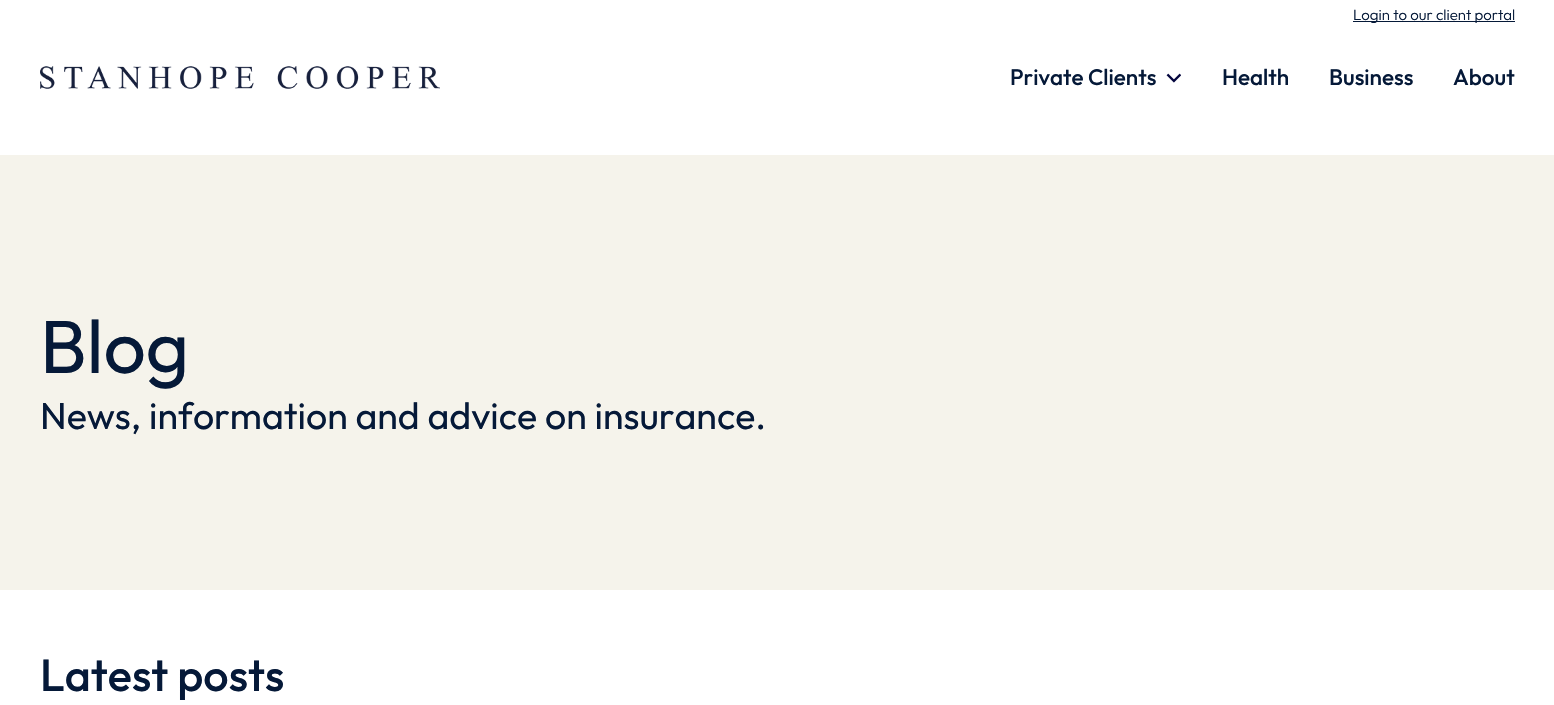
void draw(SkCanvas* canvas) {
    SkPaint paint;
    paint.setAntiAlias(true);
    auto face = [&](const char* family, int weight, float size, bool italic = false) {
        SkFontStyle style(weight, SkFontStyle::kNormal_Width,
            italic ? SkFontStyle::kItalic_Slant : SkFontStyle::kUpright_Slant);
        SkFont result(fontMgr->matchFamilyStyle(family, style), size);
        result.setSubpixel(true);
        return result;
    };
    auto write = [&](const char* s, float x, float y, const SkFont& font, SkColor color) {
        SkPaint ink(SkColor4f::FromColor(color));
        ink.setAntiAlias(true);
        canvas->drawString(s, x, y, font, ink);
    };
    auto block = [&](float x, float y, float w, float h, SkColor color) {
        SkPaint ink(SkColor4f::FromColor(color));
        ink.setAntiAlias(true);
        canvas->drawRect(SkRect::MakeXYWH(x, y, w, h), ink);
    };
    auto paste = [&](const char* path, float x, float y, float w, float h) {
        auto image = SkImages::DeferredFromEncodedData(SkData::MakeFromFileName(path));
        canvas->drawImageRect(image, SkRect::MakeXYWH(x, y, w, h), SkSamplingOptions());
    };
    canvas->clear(SK_ColorWHITE);
    block(1353, 21, 162, 1, SkColorSetRGB(5, 25, 56));
    auto kFont1 = face("Outfit", 300, 15);
    write("Login to our client portal", 1353, 20, kFont1, SkColorSetRGB(5, 25, 56));
    paste("pic1.png", 40, 66, 400, 23);
    auto kFont2 = face("Outfit", 500, 22.5f);
    write("Private Clients", 1010, 85, kFont2, SkColorSetRGB(5, 25, 56));
    paste("pic2.png", 1166, 73, 15, 10);
    write("Health", 1222, 85, kFont2, SkColorSetRGB(5, 25, 56));
    write("Business", 1329, 85, kFont2, SkColorSetRGB(5, 25, 56));
    write("About", 1453, 85, kFont2, SkColorSetRGB(5, 25, 56));
    block(0, 155, 1554, 435, SkColorSetRGB(245, 243, 235));
    auto kFont3 = face("Outfit", 400, 75);
    write("Blog", 40, 373, kFont3, SkColorSetRGB(5, 25, 56));
    auto kFont4 = face("Outfit", 400, 37.5f);
    write("News, information and advice on insurance.", 40, 429, kFont4, SkColorSetRGB(5, 25, 56));
    auto kFont5 = face("Outfit", 500, 45);
    write("Latest posts", 40, 691, kFont5, SkColorSetRGB(5, 25, 56));
}
